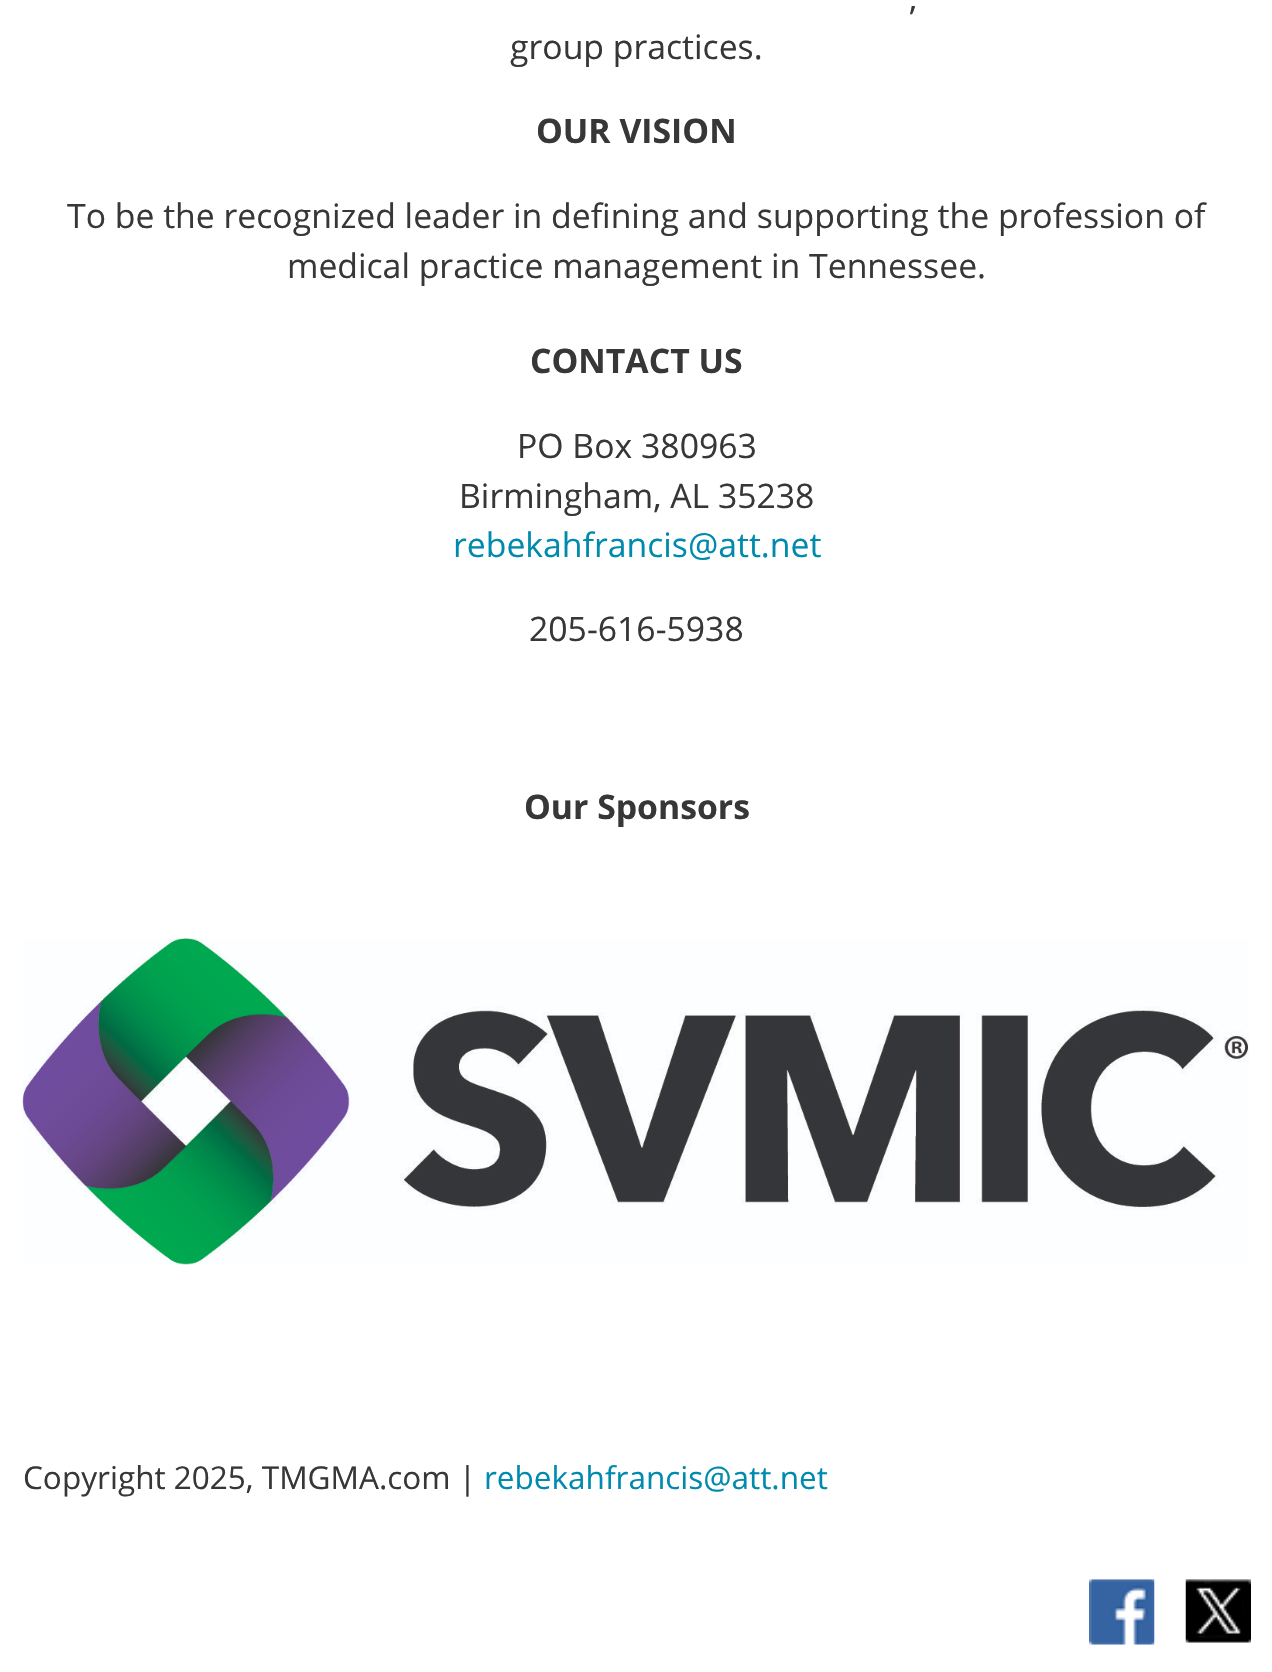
void draw(SkCanvas* canvas) {
    SkPaint paint;
    paint.setAntiAlias(true);
    auto face = [&](const char* family, int weight, float size, bool italic = false) {
        SkFontStyle style(weight, SkFontStyle::kNormal_Width,
            italic ? SkFontStyle::kItalic_Slant : SkFontStyle::kUpright_Slant);
        SkFont result(fontMgr->matchFamilyStyle(family, style), size);
        result.setSubpixel(true);
        return result;
    };
    auto write = [&](const char* s, float x, float y, const SkFont& font, SkColor color) {
        SkPaint ink(SkColor4f::FromColor(color));
        ink.setAntiAlias(true);
        canvas->drawString(s, x, y, font, ink);
    };
    auto paste = [&](const char* path, float x, float y, float w, float h) {
        auto image = SkImages::DeferredFromEncodedData(SkData::MakeFromFileName(path));
        canvas->drawImageRect(image, SkRect::MakeXYWH(x, y, w, h), SkSamplingOptions());
    };
    canvas->clear(SK_ColorWHITE);
    auto kFont1 = face("Open Sans", 400, 33.75f);
    write(",", 909, 10, kFont1, SkColorSetRGB(55, 55, 55));
    write("group practices.", 510, 59, kFont1, SkColorSetRGB(55, 55, 55));
    auto kFont2 = face("Open Sans", 700, 33.75f);
    write("OUR VISION", 536, 143, kFont2, SkColorSetRGB(55, 55, 55));
    write("To be the recognized leader in defining and supporting the profession of", 67, 228, kFont1, SkColorSetRGB(55, 55, 55));
    write("medical practice management in Tennessee.", 287, 278, kFont1, SkColorSetRGB(55, 55, 55));
    write("CONTACT US", 530, 373, kFont2, SkColorSetRGB(55, 55, 55));
    write("PO Box 380963", 517, 458, kFont1, SkColorSetRGB(55, 55, 55));
    write("Birmingham, AL 35238", 459, 508, kFont1, SkColorSetRGB(55, 55, 55));
    write("rebekahfrancis@att.net", 453, 557, kFont1, SkColorSetRGB(0, 139, 174));
    write("205-616-5938", 529, 641, kFont1, SkColorSetRGB(55, 55, 55));
    write("Our Sponsors", 524, 819, kFont2, SkColorSetRGB(55, 55, 55));
    paste("pic1.png", 22, 938, 1227, 327);
    auto kFont3 = face("Open Sans", 400, 31.5f);
    write("Copyright 2025, TMGMA.com |", 23, 1489, kFont3, SkColorSetRGB(55, 55, 55));
    write("rebekahfrancis@att.net", 484, 1489, kFont3, SkColorSetRGB(0, 139, 174));
    paste("pic2.png", 1089, 1579, 66, 66);
    paste("pic3.png", 1185, 1579, 66, 64);
}
